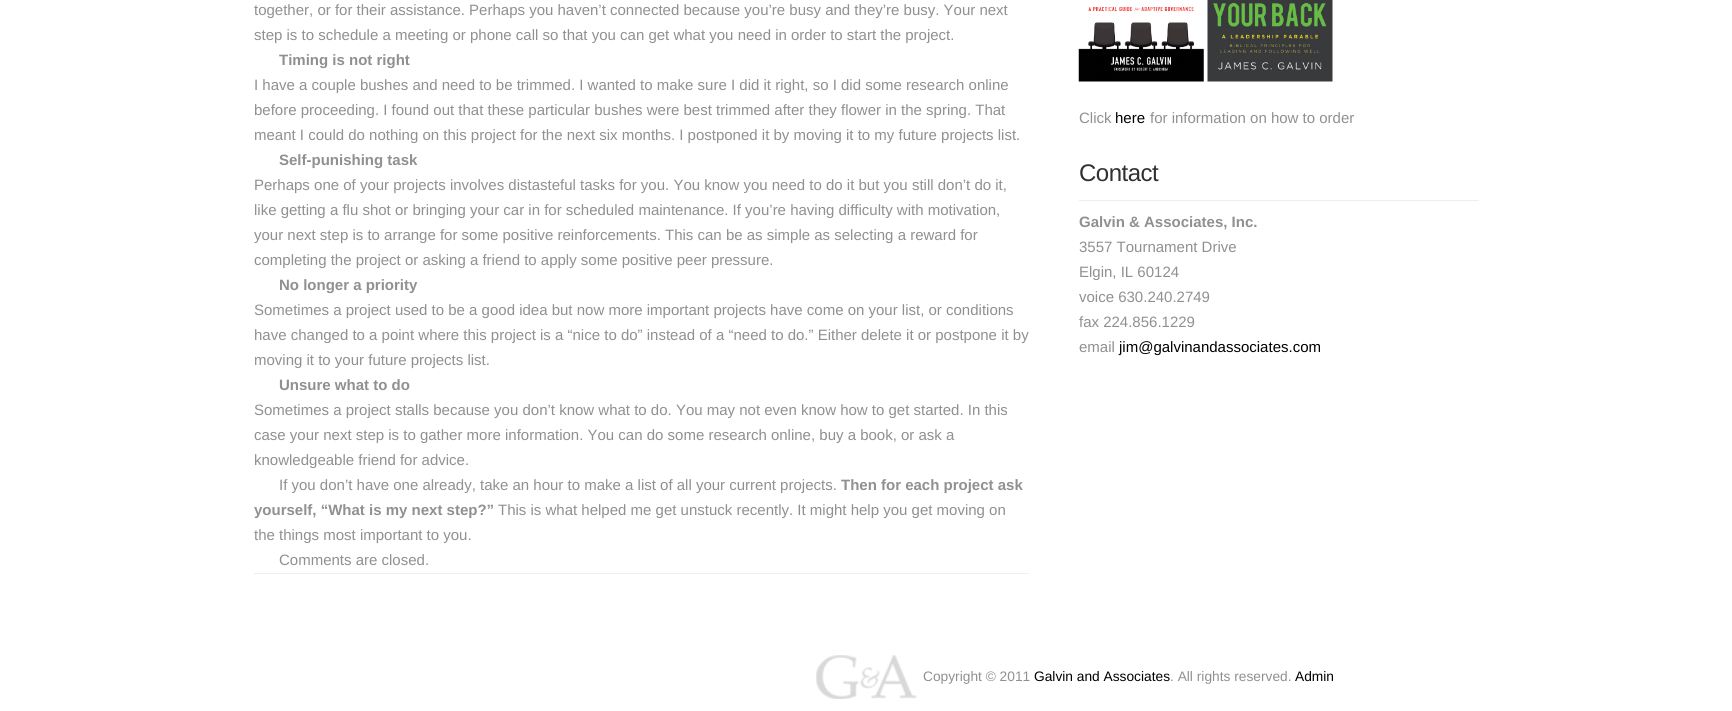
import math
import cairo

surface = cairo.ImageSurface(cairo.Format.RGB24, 1732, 711)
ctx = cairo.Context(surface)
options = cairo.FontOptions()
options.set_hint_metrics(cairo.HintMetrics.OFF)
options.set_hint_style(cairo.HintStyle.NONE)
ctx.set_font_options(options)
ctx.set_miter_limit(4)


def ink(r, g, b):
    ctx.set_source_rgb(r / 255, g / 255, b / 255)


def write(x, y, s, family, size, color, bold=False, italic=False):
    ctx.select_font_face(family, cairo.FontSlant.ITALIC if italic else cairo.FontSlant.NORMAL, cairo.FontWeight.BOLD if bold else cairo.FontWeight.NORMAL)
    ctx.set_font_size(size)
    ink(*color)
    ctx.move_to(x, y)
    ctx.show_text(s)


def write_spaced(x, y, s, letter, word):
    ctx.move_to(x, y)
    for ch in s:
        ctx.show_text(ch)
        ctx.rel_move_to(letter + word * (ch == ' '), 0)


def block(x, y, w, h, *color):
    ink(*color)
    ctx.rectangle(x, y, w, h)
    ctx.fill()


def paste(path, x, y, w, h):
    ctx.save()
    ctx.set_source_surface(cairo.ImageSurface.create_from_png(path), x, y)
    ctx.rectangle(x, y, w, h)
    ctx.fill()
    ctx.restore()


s1 = dict(family="Liberation Sans", size=15, color=(144, 144, 144))
s2 = dict(family="Liberation Sans", size=15, color=(144, 144, 144), bold=True)
s3 = dict(family="Liberation Sans", size=15, color=(0, 0, 0))
s4 = dict(family="Liberation Sans", size=13.75, color=(144, 144, 144))
s5 = dict(family="Liberation Sans", size=13.75, color=(0, 0, 0))

ink(255, 255, 255)
ctx.paint()
block(254, 573, 775, 1, 238, 238, 238)
write(254, 15, "together, or for their assistance. Perhaps you haven’t connected because you’re busy and they’re busy. Your next", **s1)
write(254, 40, "step is to schedule a meeting or phone call so that you can get what you need in order to start the project.", **s1)
write(279, 65, "Timing is not right", **s2)
write(254, 90, "I have a couple bushes and need to be trimmed. I wanted to make sure I did it right, so I did some research online", **s1)
write(254, 115, "before proceeding. I found out that these particular bushes were best trimmed after they flower in the spring. That", **s1)
write(254, 140, "meant I could do nothing on this project for the next six months. I postponed it by moving it to my future projects list.", **s1)
write(279, 165, "Self-punishing task", **s2)
write(254, 190, "Perhaps one of your projects involves distasteful tasks for you. You know you need to do it but you still don’t do it,", **s1)
write(254, 215, "like getting a flu shot or bringing your car in for scheduled maintenance. If you’re having difficulty with motivation,", **s1)
write(254, 240, "your next step is to arrange for some positive reinforcements. This can be as simple as selecting a reward for", **s1)
write(254, 265, "completing the project or asking a friend to apply some positive peer pressure.", **s1)
write(279, 290, "No longer a priority", **s2)
write(254, 315, "Sometimes a project used to be a good idea but now more important projects have come on your list, or conditions", **s1)
write(254, 340, "have changed to a point where this project is a “nice to do” instead of a “need to do.” Either delete it or postpone it by", **s1)
write(254, 365, "moving it to your future projects list.", **s1)
write(279, 390, "Unsure what to do", **s2)
write(254, 415, "Sometimes a project stalls because you don’t know what to do. You may not even know how to get started. In this", **s1)
write(254, 440, "case your next step is to gather more information. You can do some research online, buy a book, or ask a", **s1)
write(254, 465, "knowledgeable friend for advice.", **s1)
write(279, 490, "If you don’t have one already, take an hour to make a list of all your current projects.", **s1)
write(841, 490, "Then for each project ask", **s2)
write(254, 515, "yourself, “What is my next step?”", **s2)
write(498, 515, "This is what helped me get unstuck recently. It might help you get moving on", **s1)
write(254, 540, "the things most important to you.", **s1)
write(279, 565, "Comments are closed.", **s1)
paste("pic1.png", 1078, 7, 126, 75)
paste("pic2.png", 1207, 0, 126, 82)
write(1079, 123, "Click", **s1)
write(1115, 123, "here", **s3)
write(1150, 123, "for information on how to order", **s1)
block(1079, 200, 400, 1, 238, 238, 238)
ctx.set_font_size(24)
ink(48, 48, 48)
write_spaced(1079, 181, "Contact", -0.5, 0)
write(1079, 227, "Galvin & Associates, Inc.", **s2)
write(1079, 252, "3557 Tournament Drive", **s1)
write(1079, 277, "Elgin, IL 60124", **s1)
write(1079, 302, "voice 630.240.2749", **s1)
write(1079, 327, "fax 224.856.1229", **s1)
write(1079, 352, "email", **s1)
write(1119, 352, "jim@galvinandassociates.com", **s3)
paste("pic3.png", 816, 655, 101, 44)
write(923, 681, "Copyright © 2011", **s4)
write(1034, 681, "Galvin and Associates", **s5)
write(1170, 681, ". All rights reserved.", **s4)
write(1295, 681, "Admin", **s5)
surface.write_to_png("screenshot.png")
